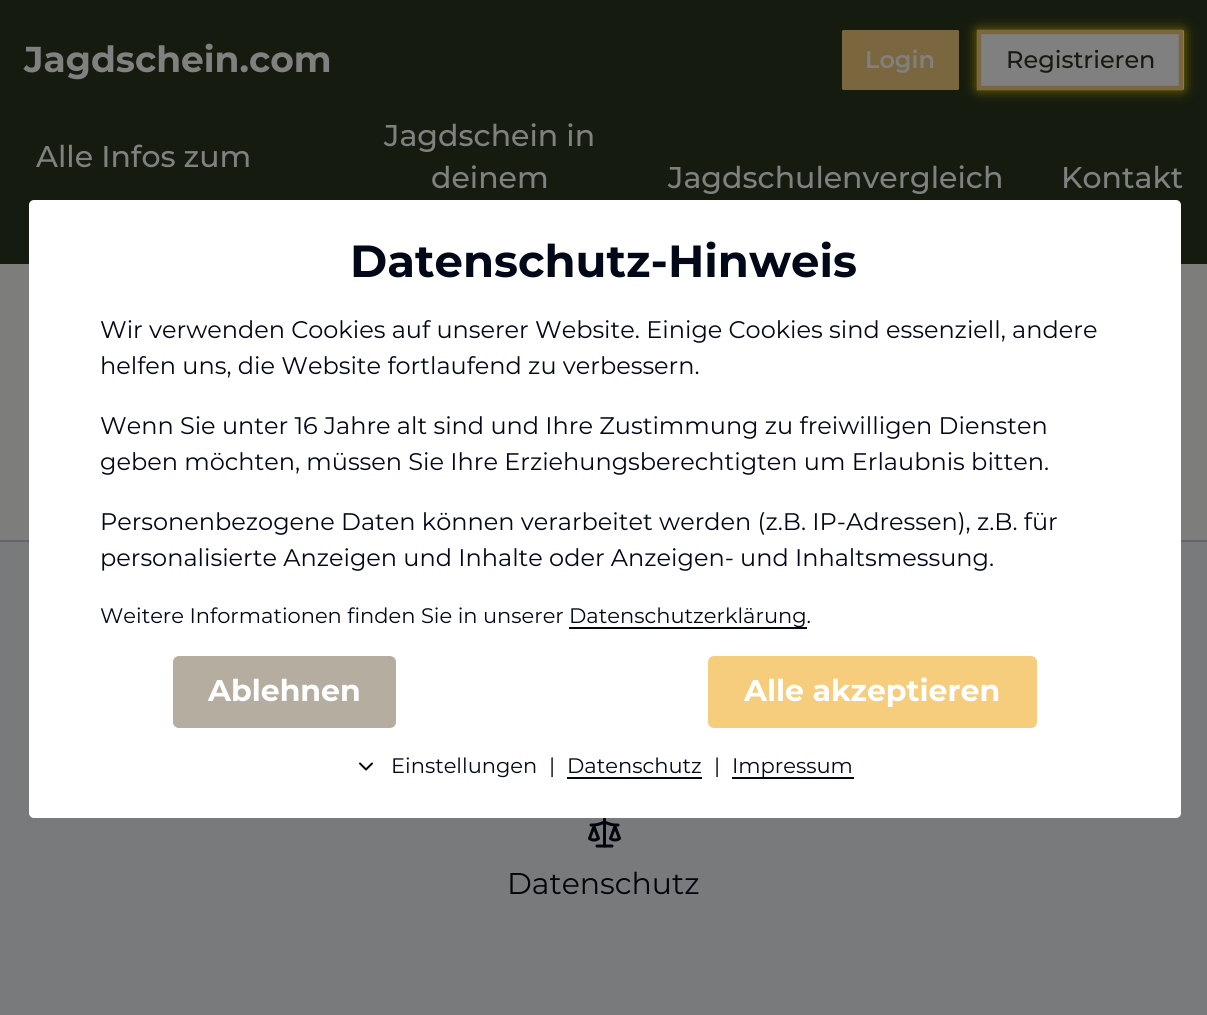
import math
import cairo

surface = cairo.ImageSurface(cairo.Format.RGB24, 1207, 1015)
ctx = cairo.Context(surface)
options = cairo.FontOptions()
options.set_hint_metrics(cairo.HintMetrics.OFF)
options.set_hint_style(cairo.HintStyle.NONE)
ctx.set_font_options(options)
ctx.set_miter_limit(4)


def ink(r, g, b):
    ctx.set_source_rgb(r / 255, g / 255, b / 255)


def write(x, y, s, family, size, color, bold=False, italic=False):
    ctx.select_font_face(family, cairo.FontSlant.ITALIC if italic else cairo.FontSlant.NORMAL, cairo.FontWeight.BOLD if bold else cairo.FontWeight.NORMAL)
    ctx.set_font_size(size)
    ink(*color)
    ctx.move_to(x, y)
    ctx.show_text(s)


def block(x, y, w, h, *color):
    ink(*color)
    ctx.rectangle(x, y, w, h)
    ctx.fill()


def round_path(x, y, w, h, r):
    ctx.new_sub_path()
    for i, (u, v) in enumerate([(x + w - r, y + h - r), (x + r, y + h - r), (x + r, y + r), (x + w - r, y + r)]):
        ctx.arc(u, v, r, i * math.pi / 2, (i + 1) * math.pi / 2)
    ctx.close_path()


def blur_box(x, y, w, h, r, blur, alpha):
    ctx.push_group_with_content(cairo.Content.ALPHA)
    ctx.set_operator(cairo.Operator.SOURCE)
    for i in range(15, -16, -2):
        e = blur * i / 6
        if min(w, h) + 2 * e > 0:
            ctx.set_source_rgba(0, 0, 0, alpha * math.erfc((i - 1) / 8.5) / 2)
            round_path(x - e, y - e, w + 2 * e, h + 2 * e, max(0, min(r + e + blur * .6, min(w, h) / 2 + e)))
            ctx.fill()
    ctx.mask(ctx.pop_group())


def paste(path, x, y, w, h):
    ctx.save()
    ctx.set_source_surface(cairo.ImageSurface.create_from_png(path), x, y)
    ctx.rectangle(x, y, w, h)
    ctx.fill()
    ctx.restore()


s1 = dict(family="Montserrat", size=36, color=(128, 128, 128), bold=True)
s2 = dict(family="Montserrat SemiBold", size=24, color=(128, 128, 128))
s3 = dict(family="Montserrat Medium", size=24, color=(21, 28, 15))
s4 = dict(family="Montserrat Medium", size=30, color=(128, 128, 128))
s5 = dict(family="Montserrat", size=45, color=(2, 8, 23), bold=True)
s6 = dict(family="Montserrat", size=24, color=(2, 8, 23))
s7 = dict(family="Montserrat", size=21, color=(2, 8, 23))
s8 = dict(family="Montserrat", size=30, color=(255, 255, 255), bold=True)
s9 = dict(family="Montserrat", size=30, color=(1, 4, 12))

ink(121, 122, 123)
ctx.paint()
block(0, 0, 1207, 264, 21, 28, 15)
write(24, 72, "Jagdschein.com", **s1)
ink(123, 103, 63)
round_path(842, 30, 117, 60, 1.5)
ctx.fill()
write(865, 68, "Login", **s2)
ink(128, 108, 0)
blur_box(977, 30, 207, 60, 1.5, 6, 1)
ink(128, 128, 128)
round_path(977, 30, 207, 60, 1.5)
ctx.fill()
ctx.new_path()
ctx.move_to(979, 32)
ctx.line_to(1181, 32)
ctx.line_to(1181, 88)
ctx.line_to(979, 88)
ctx.close_path()
ink(123, 103, 63)
ctx.set_line_width(4.5)
ctx.stroke()
write(1006, 68, "Registrieren", **s3)
write(36, 167, "Alle Infos zum", **s4)
write(384, 146, "Jagdschein in", **s4)
write(431, 188, "deinem", **s4)
write(668, 188, "Jagdschulenvergleich", **s4)
write(1061, 188, "Kontakt", **s4)
block(0, 264, 1207, 276, 125, 125, 124)
block(0, 540, 1207, 2, 101, 101, 104)
ink(255, 255, 255)
round_path(29, 200, 1152, 618, 5)
ctx.fill()
write(350, 277, "Datenschutz-Hinweis", **s5)
write(100, 338, "Wir verwenden Cookies auf unserer Website. Einige Cookies sind essenziell, andere", **s6)
write(100, 374, "helfen uns, die Website fortlaufend zu verbessern.", **s6)
write(100, 434, "Wenn Sie unter 16 Jahre alt sind und Ihre Zustimmung zu freiwilligen Diensten", **s6)
write(100, 470, "geben möchten, müssen Sie Ihre Erziehungsberechtigten um Erlaubnis bitten.", **s6)
write(100, 530, "Personenbezogene Daten können verarbeitet werden (z.B. IP-Adressen), z.B. für", **s6)
write(100, 566, "personalisierte Anzeigen und Inhalte oder Anzeigen- und Inhaltsmessung.", **s6)
write(100, 623, "Weitere Informationen finden Sie in unserer", **s7)
block(569, 627, 238, 2, 2, 8, 23)
write(569, 623, "Datenschutzerklärung.", **s7)
ink(181, 173, 159)
round_path(173, 656, 223, 72, 6)
ctx.fill()
write(208, 701, "Ablehnen", **s8)
ink(245, 205, 125)
round_path(708, 656, 329, 72, 6)
ctx.fill()
write(744, 701, "Alle akzeptieren", **s8)
ctx.new_path()
ctx.move_to(360, 763.5)
ctx.line_to(366, 769.5)
ctx.line_to(372, 763.5)
ink(2, 8, 23)
ctx.set_line_width(2)
ctx.set_line_cap(cairo.LineCap.ROUND)
ctx.set_line_join(cairo.LineJoin.ROUND)
ctx.stroke()
write(391, 773, "Einstellungen", **s7)
write(549, 773, "|", **s7)
write(567, 773, "Datenschutz", **s7)
block(567, 777, 135, 2, 2, 8, 23)
write(714, 773, "|", **s7)
block(732, 777, 122, 2, 2, 8, 23)
write(732, 773, "Impressum", **s7)
paste("pic1.png", 588, 818, 33, 30)
write(507, 894, "Datenschutz", **s9)
surface.write_to_png("screenshot.png")
